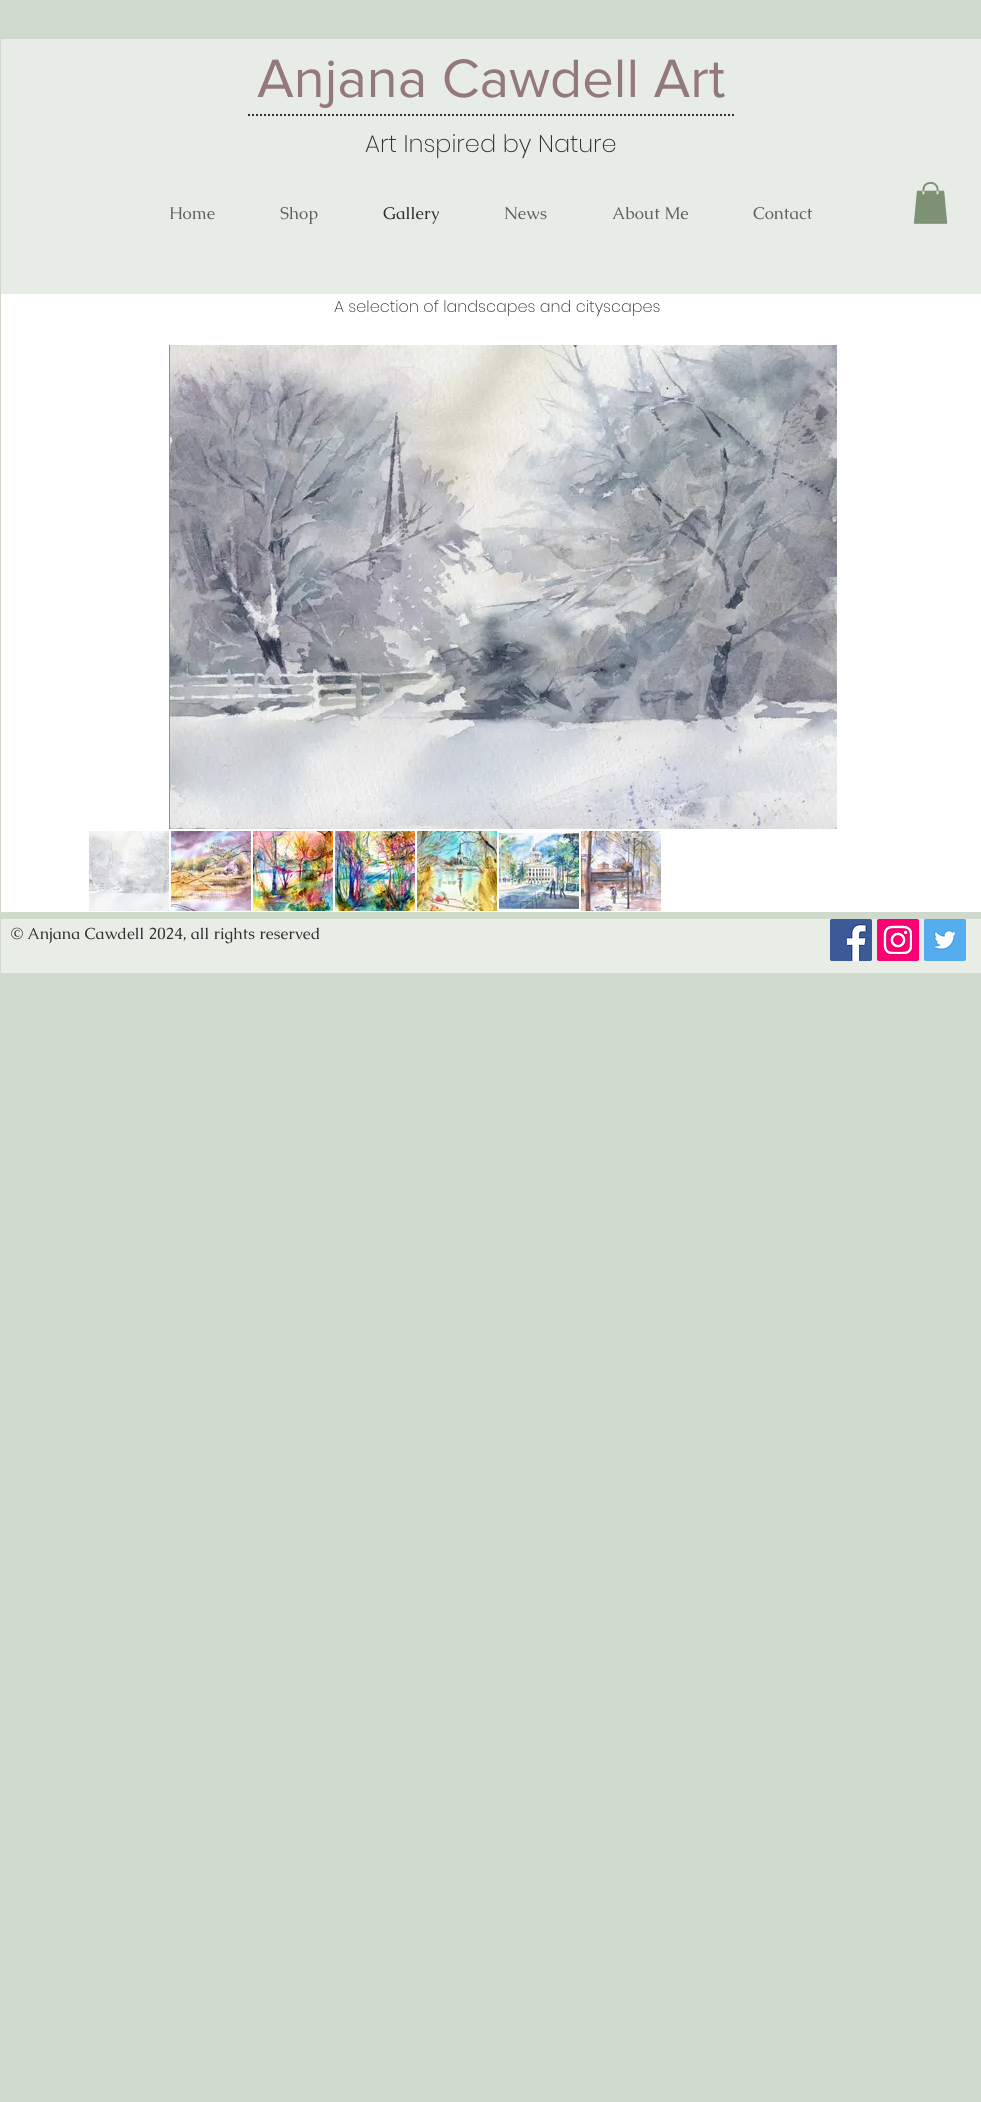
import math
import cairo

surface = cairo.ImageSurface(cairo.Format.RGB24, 981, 2102)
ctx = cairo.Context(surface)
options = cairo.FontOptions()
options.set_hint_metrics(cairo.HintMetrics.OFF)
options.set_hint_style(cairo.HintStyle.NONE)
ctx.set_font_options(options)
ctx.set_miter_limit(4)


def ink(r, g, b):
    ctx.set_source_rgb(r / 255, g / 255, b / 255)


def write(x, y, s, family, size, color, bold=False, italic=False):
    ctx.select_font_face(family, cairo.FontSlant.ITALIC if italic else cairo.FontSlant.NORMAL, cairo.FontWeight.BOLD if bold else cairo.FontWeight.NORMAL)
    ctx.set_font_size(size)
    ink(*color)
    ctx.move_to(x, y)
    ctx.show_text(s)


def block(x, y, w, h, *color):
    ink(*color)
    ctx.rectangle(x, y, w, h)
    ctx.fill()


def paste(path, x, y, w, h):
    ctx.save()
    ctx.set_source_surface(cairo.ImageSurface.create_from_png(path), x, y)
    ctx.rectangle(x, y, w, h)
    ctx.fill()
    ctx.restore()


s1 = dict(family="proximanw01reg", size=56, color=(147, 121, 122))
s2 = dict(family="Poppins ExtraLight", size=24, color=(48, 48, 48))
s3 = dict(family="Caudex", size=17, color=(96, 96, 96))
s4 = dict(family="Caudex", size=17, color=(48, 48, 48))
s5 = dict(family="Poppins ExtraLight", size=16, color=(48, 48, 48))
s6 = dict(family="Caudex", size=16, color=(48, 48, 48))

ink(208, 218, 204)
ctx.paint()
block(1, 39, 980, 255, 232, 236, 230)
write(257, 97, "Anjana Cawdell Art", **s1)
ctx.new_path()
ctx.move_to(248, 115)
ctx.line_to(734, 115)
ink(48, 48, 48)
ctx.set_dash([2, 2])
ctx.stroke()
write(365, 152, "Art Inspired by Nature", **s2)
write(169, 219, "Home", **s3)
write(280, 219, "Shop", **s3)
write(383, 219, "Gallery", **s4)
write(504, 219, "News", **s3)
write(612, 219, "About Me", **s3)
write(753, 219, "Contact", **s3)
paste("pic1.png", 913, 182, 35, 42)
block(1, 294, 980, 618, 255, 255, 255)
write(334, 312, "A selection of landscapes and cityscapes", **s5)
block(169, 345, 1, 484, 144, 144, 144)
paste("pic2.png", 170, 345, 667, 484)
paste("pic3.png", 89, 831, 80, 80)
paste("pic4.png", 171, 831, 80, 80)
paste("pic5.png", 253, 831, 80, 80)
paste("pic6.png", 335, 831, 80, 80)
paste("pic7.png", 417, 831, 80, 80)
paste("pic8.png", 499, 831, 80, 80)
paste("pic9.png", 581, 831, 80, 80)
block(1, 919, 980, 54, 232, 237, 230)
write(11, 939, "© Anjana Cawdell 2024, all rights reserved", **s6)
paste("pic10.png", 830, 919, 42, 42)
paste("pic11.png", 877, 919, 42, 42)
paste("pic12.png", 924, 919, 42, 42)
surface.write_to_png("screenshot.png")
